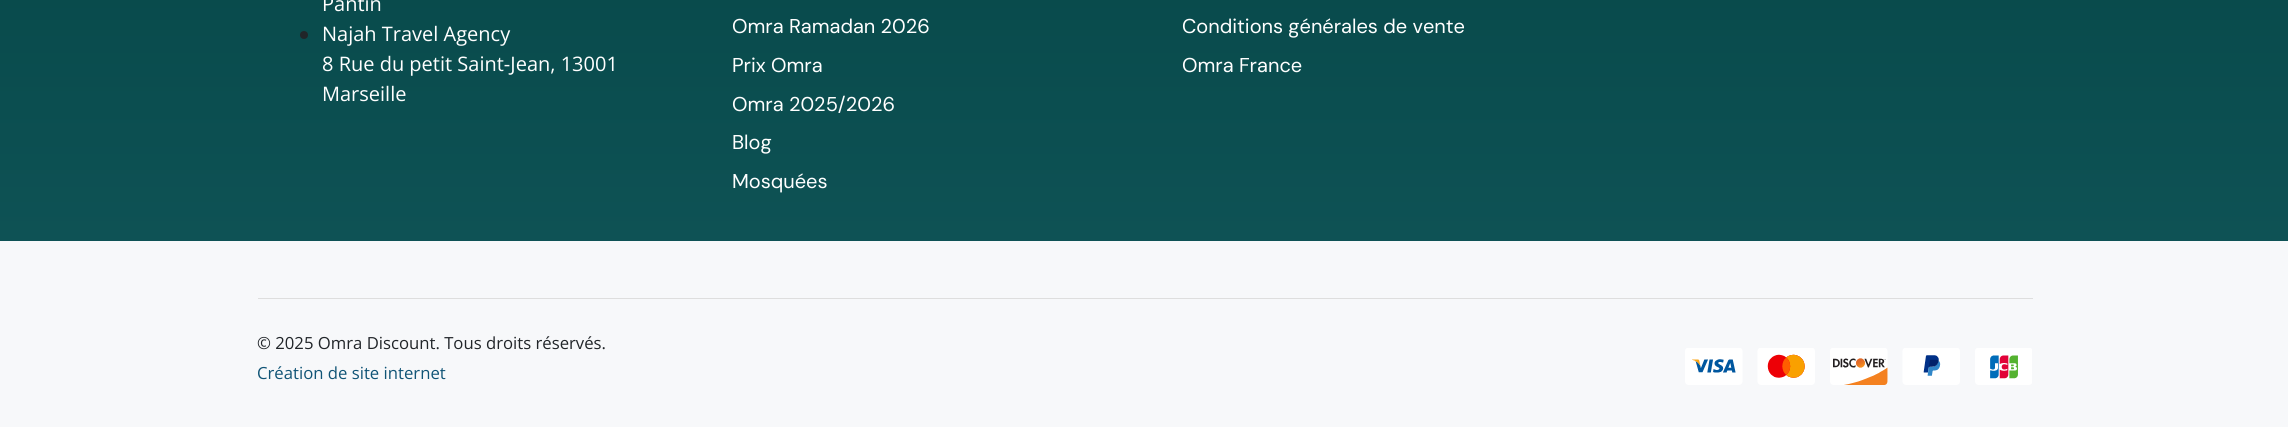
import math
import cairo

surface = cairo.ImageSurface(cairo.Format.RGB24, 2288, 427)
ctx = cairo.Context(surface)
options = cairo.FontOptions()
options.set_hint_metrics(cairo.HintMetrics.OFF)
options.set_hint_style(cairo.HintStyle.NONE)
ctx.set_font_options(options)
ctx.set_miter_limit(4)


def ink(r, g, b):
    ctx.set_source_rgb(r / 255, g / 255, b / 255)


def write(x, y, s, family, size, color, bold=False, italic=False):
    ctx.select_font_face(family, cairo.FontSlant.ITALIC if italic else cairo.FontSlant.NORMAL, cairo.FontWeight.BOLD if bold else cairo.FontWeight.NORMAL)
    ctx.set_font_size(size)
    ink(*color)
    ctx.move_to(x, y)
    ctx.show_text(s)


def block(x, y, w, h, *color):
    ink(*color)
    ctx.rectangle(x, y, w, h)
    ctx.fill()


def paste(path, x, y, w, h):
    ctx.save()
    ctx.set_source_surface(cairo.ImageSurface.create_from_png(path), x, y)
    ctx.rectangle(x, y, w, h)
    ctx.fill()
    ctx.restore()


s1 = dict(family="Open Sans", size=20, color=(255, 255, 255))
s2 = dict(family="DM Sans", size=20, color=(255, 255, 255))
s3 = dict(family="Open Sans", size=16.7, color=(33, 37, 41))
s4 = dict(family="Open Sans", size=16.7, color=(16, 84, 118))

ink(255, 255, 255)
ctx.paint()
gradient = cairo.LinearGradient(1144, -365, 1144, 241)
gradient.add_color_stop_rgba(0, 0.004, 0.251, 0.247, 1)
gradient.add_color_stop_rgba(1, 0.055, 0.322, 0.333, 1)
ctx.set_source(gradient)
ctx.rectangle(0, 0, 2288, 241)
ctx.fill()
write(322, 11, "Pantin", **s1)
ink(33, 37, 41)
ctx.new_path()
ctx.arc(304, 35, 4, 0, 2 * math.pi)
ctx.fill()
write(322, 41, "Najah Travel Agency", **s1)
write(322, 71, "8 Rue du petit Saint-Jean, 13001", **s1)
write(322, 101, "Marseille", **s1)
write(732, 33, "Omra Ramadan 2026", **s2)
write(732, 72, "Prix Omra", **s2)
write(732, 111, "Omra 2025/2026", **s2)
write(732, 149, "Blog", **s2)
write(732, 188, "Mosquées", **s2)
write(1182, 33, "Conditions générales de vente", **s2)
write(1182, 72, "Omra France", **s2)
block(0, 241, 2288, 186, 247, 248, 250)
block(258, 298, 1775, 1, 222, 222, 222)
write(257, 349, "© 2025 Omra Discount. Tous droits réservés.", **s3)
write(257, 379, "Création de site internet", **s4)
paste("pic1.png", 1685, 348, 347, 37)
surface.write_to_png("screenshot.png")
